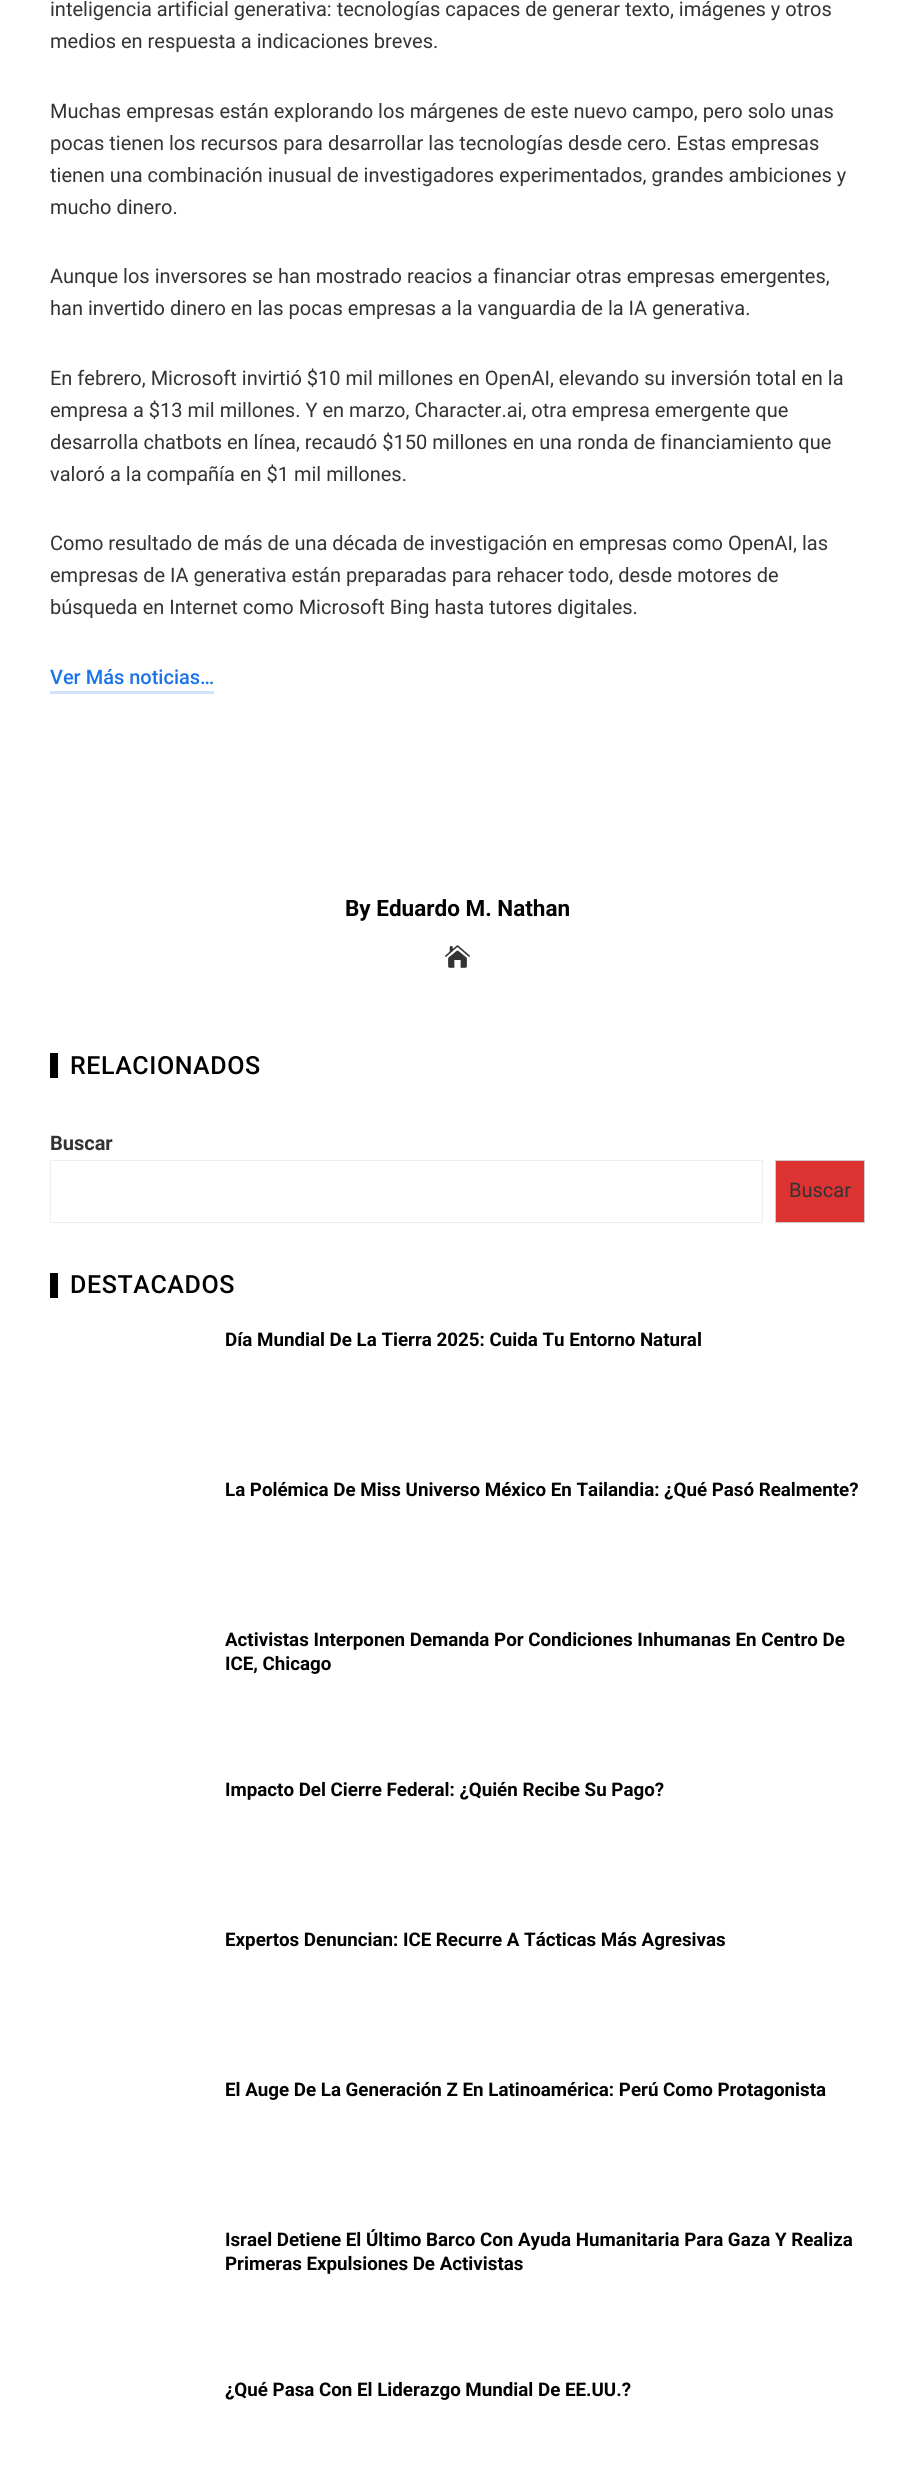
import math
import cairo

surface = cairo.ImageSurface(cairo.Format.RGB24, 915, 2489)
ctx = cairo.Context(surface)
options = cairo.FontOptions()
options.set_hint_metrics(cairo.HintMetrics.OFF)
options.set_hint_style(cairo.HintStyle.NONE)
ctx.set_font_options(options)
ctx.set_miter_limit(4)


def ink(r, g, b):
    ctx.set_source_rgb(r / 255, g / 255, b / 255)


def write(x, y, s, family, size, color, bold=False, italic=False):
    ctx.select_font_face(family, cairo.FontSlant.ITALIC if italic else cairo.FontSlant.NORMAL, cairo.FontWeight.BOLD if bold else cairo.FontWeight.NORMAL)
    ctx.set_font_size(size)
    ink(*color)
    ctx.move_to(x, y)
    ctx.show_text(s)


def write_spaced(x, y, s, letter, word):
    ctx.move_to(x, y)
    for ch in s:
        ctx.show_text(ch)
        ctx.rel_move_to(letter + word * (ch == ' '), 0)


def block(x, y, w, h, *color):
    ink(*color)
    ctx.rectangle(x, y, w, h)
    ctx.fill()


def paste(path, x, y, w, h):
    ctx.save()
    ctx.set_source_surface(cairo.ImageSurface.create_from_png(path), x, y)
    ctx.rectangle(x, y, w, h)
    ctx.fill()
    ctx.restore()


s1 = dict(family="Roboto", size=20, color=(51, 51, 51))
s2 = dict(family="Roboto Medium", size=20, color=(26, 115, 232))
s3 = dict(family="Roboto", size=22.5, color=(0, 0, 0), bold=True)
s4 = dict(family="Roboto", size=20, color=(51, 51, 51), bold=True)
s5 = dict(family="Roboto", size=18.75, color=(0, 0, 0), bold=True)

ink(255, 255, 255)
ctx.paint()
write(50, 16, "inteligencia artificial generativa: tecnologías capaces de generar texto, imágenes y otros", **s1)
write(50, 48, "medios en respuesta a indicaciones breves.", **s1)
write(50, 118, "Muchas empresas están explorando los márgenes de este nuevo campo, pero solo unas", **s1)
write(50, 150, "pocas tienen los recursos para desarrollar las tecnologías desde cero. Estas empresas", **s1)
write(50, 182, "tienen una combinación inusual de investigadores experimentados, grandes ambiciones y", **s1)
write(50, 214, "mucho dinero.", **s1)
write(50, 283, "Aunque los inversores se han mostrado reacios a financiar otras empresas emergentes,", **s1)
write(50, 315, "han invertido dinero en las pocas empresas a la vanguardia de la IA generativa.", **s1)
write(50, 385, "En febrero, Microsoft invirtió $10 mil millones en OpenAI, elevando su inversión total en la", **s1)
write(50, 417, "empresa a $13 mil millones. Y en marzo, Character.ai, otra empresa emergente que", **s1)
write(50, 449, "desarrolla chatbots en línea, recaudó $150 millones en una ronda de financiamiento que", **s1)
write(50, 481, "valoró a la compañía en $1 mil millones.", **s1)
write(50, 550, "Como resultado de más de una década de investigación en empresas como OpenAI, las", **s1)
write(50, 582, "empresas de IA generativa están preparadas para rehacer todo, desde motores de", **s1)
write(50, 614, "búsqueda en Internet como Microsoft Bing hasta tutores digitales.", **s1)
write(50, 684, "Ver Más noticias…", **s2)
block(50, 691, 164, 3, 209, 227, 250)
write(345, 916, "By Eduardo M. Nathan", **s3)
paste("pic1.png", 445, 945, 25, 23)
block(50, 1053, 8, 25, 0, 0, 0)
ctx.select_font_face("Roboto Medium")
ctx.set_font_size(25)
write_spaced(70, 1074, "RELACIONADOS", 0.6, 0)
write(50, 1150, "Buscar", **s4)
ctx.rectangle(50.5, 1160.5, 712, 62)
ink(238, 238, 238)
ctx.set_line_width(1)
ctx.stroke()
ink(221, 51, 51)
ctx.rectangle(775.5, 1160.5, 89, 62)
ctx.fill_preserve()
ink(204, 204, 204)
ctx.stroke()
write(789, 1197, "Buscar", **s1)
block(50, 1273, 8, 25, 0, 0, 0)
ctx.select_font_face("Roboto Medium")
ctx.set_font_size(25)
write_spaced(70, 1293, "DESTACADOS", 0.6, 0)
write(225, 1346, "Día Mundial De La Tierra 2025: Cuida Tu Entorno Natural", **s5)
write(225, 1496, "La Polémica De Miss Universo México En Tailandia: ¿Qué Pasó Realmente?", **s5)
write(225, 1646, "Activistas Interponen Demanda Por Condiciones Inhumanas En Centro De", **s5)
write(225, 1670, "ICE, Chicago", **s5)
write(225, 1796, "Impacto Del Cierre Federal: ¿Quién Recibe Su Pago?", **s5)
write(225, 1946, "Expertos Denuncian: ICE Recurre A Tácticas Más Agresivas", **s5)
write(225, 2096, "El Auge De La Generación Z En Latinoamérica: Perú Como Protagonista", **s5)
write(225, 2246, "Israel Detiene El Último Barco Con Ayuda Humanitaria Para Gaza Y Realiza", **s5)
write(225, 2270, "Primeras Expulsiones De Activistas", **s5)
write(225, 2396, "¿Qué Pasa Con El Liderazgo Mundial De EE.UU.?", **s5)
surface.write_to_png("screenshot.png")
